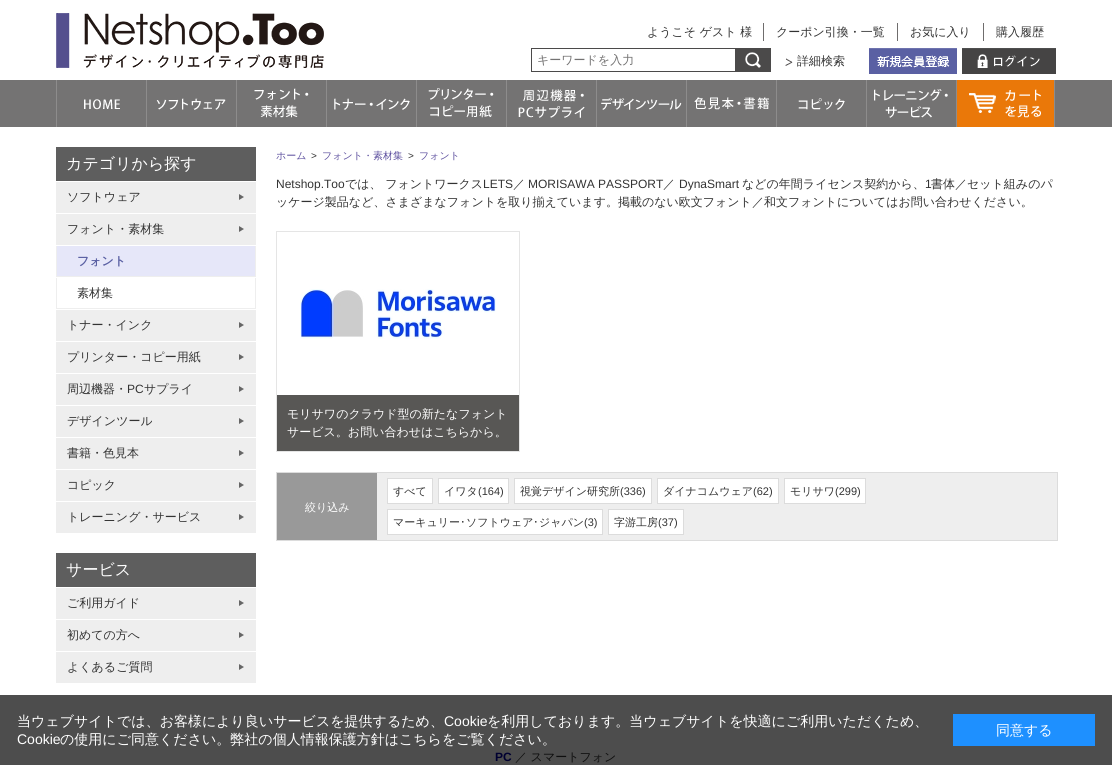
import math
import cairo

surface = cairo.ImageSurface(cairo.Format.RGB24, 1112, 765)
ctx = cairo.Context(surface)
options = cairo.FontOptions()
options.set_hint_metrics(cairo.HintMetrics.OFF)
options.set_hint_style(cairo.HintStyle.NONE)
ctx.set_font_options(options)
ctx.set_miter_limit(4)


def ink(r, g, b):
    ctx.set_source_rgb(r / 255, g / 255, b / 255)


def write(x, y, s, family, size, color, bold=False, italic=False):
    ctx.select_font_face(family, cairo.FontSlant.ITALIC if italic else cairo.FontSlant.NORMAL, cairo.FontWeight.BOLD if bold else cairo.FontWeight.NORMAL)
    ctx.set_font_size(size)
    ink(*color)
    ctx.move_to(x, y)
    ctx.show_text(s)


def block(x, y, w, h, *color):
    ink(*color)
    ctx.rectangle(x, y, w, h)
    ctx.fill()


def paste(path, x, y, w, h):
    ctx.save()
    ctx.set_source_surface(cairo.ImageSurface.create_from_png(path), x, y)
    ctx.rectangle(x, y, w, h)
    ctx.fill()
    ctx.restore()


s1 = dict(family="WenQuanYi Zen Hei Medium", size=12, color=(51, 51, 51))
s2 = dict(family="WenQuanYi Zen Hei Medium", size=12, color=(116, 115, 115))
s3 = dict(family="WenQuanYi Zen Hei Medium", size=16, color=(255, 255, 255))
s4 = dict(family="WenQuanYi Zen Hei", size=12, color=(90, 96, 163), bold=True)
s5 = dict(family="Liberation Sans", size=12, color=(51, 51, 51))
s6 = dict(family="WenQuanYi Zen Hei Medium", size=10, color=(95, 82, 160))
s7 = dict(family="Liberation Sans", size=10, color=(51, 51, 51))
s8 = dict(family="WenQuanYi Zen Hei Medium", size=12, color=(255, 255, 255))
s9 = dict(family="WenQuanYi Zen Hei Medium", size=11, color=(255, 255, 255))
s10 = dict(family="WenQuanYi Zen Hei Medium", size=11, color=(51, 51, 51))
s11 = dict(family="Liberation Sans", size=11, color=(51, 51, 51))
s12 = dict(family="IPAPGothic", size=11, color=(51, 51, 51))
s13 = dict(family="Liberation Sans", size=12, color=(0, 0, 48), bold=True)
s14 = dict(family="WenQuanYi Zen Hei Medium", size=12, color=(15, 15, 15))
s15 = dict(family="WenQuanYi Zen Hei Medium", size=14, color=(255, 255, 255))
s16 = dict(family="Liberation Sans", size=14, color=(255, 255, 255))

ink(255, 255, 255)
ctx.paint()
block(0, 695, 1112, 70, 77, 77, 77)
paste("pic1.png", 56, 13, 268, 55)
write(647, 36, "ようこそ ゲスト 様", **s1)
block(763, 23, 1, 18, 111, 109, 109)
write(776, 36, "クーポン引換・一覧", **s1)
block(897, 23, 1, 18, 111, 109, 109)
write(910, 36, "お気に入り", **s1)
block(983, 23, 1, 18, 111, 109, 109)
write(996, 36, "購入履歴", **s1)
ctx.rectangle(531.5, 48.5, 239, 23)
ink(75, 74, 74)
ctx.set_line_width(1)
ctx.stroke()
write(537, 64, "キーワードを入力", **s2)
paste("pic2.png", 735, 49, 35, 22)
paste("pic3.png", 785, 58, 8, 8)
write(797, 65, "詳細検索", **s1)
paste("pic4.png", 869, 48, 88, 26)
paste("pic5.png", 962, 48, 94, 26)
block(0, 80, 1112, 47, 116, 115, 115)
block(56, 80, 1, 47, 141, 140, 140)
paste("pic6.png", 84, 99, 36, 11)
block(146, 80, 1, 47, 141, 140, 140)
paste("pic7.png", 156, 98, 70, 12)
block(236, 80, 1, 47, 141, 140, 140)
paste("pic8.png", 254, 88, 55, 30)
block(326, 80, 1, 47, 141, 140, 140)
paste("pic9.png", 334, 98, 76, 12)
block(416, 80, 1, 47, 141, 140, 140)
paste("pic10.png", 428, 88, 66, 30)
block(506, 80, 1, 47, 141, 140, 140)
paste("pic11.png", 518, 89, 67, 29)
block(596, 80, 1, 47, 141, 140, 140)
paste("pic12.png", 601, 97, 81, 13)
block(686, 80, 1, 47, 141, 140, 140)
paste("pic13.png", 694, 97, 75, 13)
block(776, 80, 1, 47, 141, 140, 140)
paste("pic14.png", 798, 98, 47, 12)
block(866, 80, 1, 47, 141, 140, 140)
paste("pic15.png", 874, 89, 74, 29)
block(957, 80, 97, 47, 234, 120, 9)
paste("pic16.png", 969, 89, 72, 29)
block(1054, 80, 1, 47, 141, 140, 140)
block(956, 80, 1, 47, 141, 140, 140)
block(56, 147, 200, 34, 94, 94, 94)
write(66, 169, "カテゴリから探す", **s3)
block(255, 182, 1, 31, 238, 238, 238)
block(56, 212, 200, 1, 238, 238, 238)
block(56, 182, 1, 31, 238, 238, 238)
block(57, 182, 198, 30, 238, 238, 238)
paste("pic17.png", 239, 194, 5, 6)
write(67, 201, "ソフトウェア", **s1)
block(255, 214, 1, 31, 238, 238, 238)
block(56, 244, 200, 1, 238, 238, 238)
block(56, 214, 1, 31, 238, 238, 238)
block(57, 214, 198, 30, 238, 238, 238)
paste("pic17.png", 239, 226, 5, 6)
write(67, 233, "フォント・素材集", **s1)
block(255, 246, 1, 31, 238, 238, 238)
block(56, 276, 200, 1, 238, 238, 238)
block(56, 246, 1, 31, 238, 238, 238)
block(57, 246, 198, 30, 230, 231, 249)
write(77, 265, "フォント", **s4)
block(255, 278, 1, 31, 238, 238, 238)
block(56, 308, 200, 1, 238, 238, 238)
block(56, 278, 1, 31, 238, 238, 238)
write(77, 297, "素材集", **s1)
block(255, 310, 1, 31, 238, 238, 238)
block(56, 340, 200, 1, 238, 238, 238)
block(56, 310, 1, 31, 238, 238, 238)
block(57, 310, 198, 30, 238, 238, 238)
paste("pic17.png", 239, 322, 5, 6)
write(67, 329, "トナー・インク", **s1)
block(255, 342, 1, 31, 238, 238, 238)
block(56, 372, 200, 1, 238, 238, 238)
block(56, 342, 1, 31, 238, 238, 238)
block(57, 342, 198, 30, 238, 238, 238)
paste("pic17.png", 239, 354, 5, 6)
write(67, 361, "プリンター・コピー用紙", **s1)
block(255, 374, 1, 31, 238, 238, 238)
block(56, 404, 200, 1, 238, 238, 238)
block(56, 374, 1, 31, 238, 238, 238)
block(57, 374, 198, 30, 238, 238, 238)
paste("pic17.png", 239, 386, 5, 6)
write(67, 393, "周辺機器・", **s1)
write(127, 393, "PC", **s5)
write(144, 393, "サプライ", **s1)
block(255, 406, 1, 31, 238, 238, 238)
block(56, 436, 200, 1, 238, 238, 238)
block(56, 406, 1, 31, 238, 238, 238)
block(57, 406, 198, 30, 238, 238, 238)
paste("pic17.png", 239, 418, 5, 6)
write(67, 425, "デザインツール", **s1)
block(255, 438, 1, 31, 238, 238, 238)
block(56, 468, 200, 1, 238, 238, 238)
block(56, 438, 1, 31, 238, 238, 238)
block(57, 438, 198, 30, 238, 238, 238)
paste("pic17.png", 239, 450, 5, 6)
write(67, 457, "書籍・色見本", **s1)
block(255, 470, 1, 31, 238, 238, 238)
block(56, 500, 200, 1, 238, 238, 238)
block(56, 470, 1, 31, 238, 238, 238)
block(57, 470, 198, 30, 238, 238, 238)
paste("pic17.png", 239, 482, 5, 6)
write(67, 489, "コピック", **s1)
block(255, 502, 1, 31, 238, 238, 238)
block(56, 532, 200, 1, 238, 238, 238)
block(56, 502, 1, 31, 238, 238, 238)
block(57, 502, 198, 30, 238, 238, 238)
paste("pic17.png", 239, 514, 5, 6)
write(67, 521, "トレーニング・サービス", **s1)
block(56, 553, 200, 34, 94, 94, 94)
write(66, 575, "サービス", **s3)
block(255, 588, 1, 31, 238, 238, 238)
block(56, 618, 200, 1, 238, 238, 238)
block(56, 588, 1, 31, 238, 238, 238)
block(57, 588, 198, 30, 238, 238, 238)
paste("pic17.png", 239, 600, 5, 6)
write(67, 607, "ご利用ガイド", **s1)
block(255, 620, 1, 31, 238, 238, 238)
block(56, 650, 200, 1, 238, 238, 238)
block(56, 620, 1, 31, 238, 238, 238)
block(57, 620, 198, 30, 238, 238, 238)
paste("pic17.png", 239, 632, 5, 6)
write(67, 639, "初めての方へ", **s1)
block(255, 652, 1, 31, 238, 238, 238)
block(56, 682, 200, 1, 238, 238, 238)
block(56, 652, 1, 31, 238, 238, 238)
block(57, 652, 198, 30, 238, 238, 238)
paste("pic17.png", 239, 664, 5, 6)
write(67, 671, "よくあるご質問", **s1)
write(276, 159, "ホーム", **s6)
write(311, 159, ">", **s7)
write(322, 159, "フォント・素材集", **s6)
write(408, 159, ">", **s7)
write(419, 159, "フォント", **s6)
write(276, 188, "Netshop.Too", **s5)
write(345, 188, "では、 フォントワークス", **s1)
write(483, 188, "LETS", **s5)
write(513, 188, "／", **s1)
write(528, 188, "MORISAWA PASSPORT", **s5)
write(663, 188, "／", **s1)
write(679, 188, "DynaSmart", **s5)
write(742, 188, "などの年間ライセンス契約から、", **s1)
write(925, 188, "1", **s5)
write(931, 188, "書体／セット組みのパ", **s1)
write(276, 206, "ッケージ製品など、さまざまなフォントを取り揃えています。掲載のない欧文フォント／和文フォントについてはお問い合わせください。", **s1)
ctx.rectangle(276.5, 231.5, 243, 220)
ink(229, 229, 229)
ctx.stroke()
paste("pic18.png", 300, 289, 196, 50)
block(277, 395, 242, 56, 88, 87, 85)
write(287, 418, "モリサワのクラウド型の新たなフォント", **s8)
write(287, 436, "サービス。お問い合わせはこちらから。", **s8)
ctx.rectangle(276.5, 472.5, 781, 68)
ink(220, 220, 220)
ctx.stroke()
block(277, 473, 100, 67, 153, 153, 153)
write(305, 511, "絞り込み", **s9)
block(377, 473, 680, 67, 238, 238, 238)
ink(255, 255, 255)
ctx.rectangle(387.5, 478.5, 45, 25)
ctx.fill_preserve()
ink(220, 220, 220)
ctx.stroke()
write(393, 495, "すべて", **s10)
ink(255, 255, 255)
ctx.rectangle(438.5, 478.5, 70, 25)
ctx.fill_preserve()
ink(220, 220, 220)
ctx.stroke()
write(444, 495, "イワタ", **s10)
write(478, 495, "(164)", **s11)
ink(255, 255, 255)
ctx.rectangle(514.5, 478.5, 137, 25)
ctx.fill_preserve()
ink(220, 220, 220)
ctx.stroke()
write(520, 495, "視覚デザイン研究所", **s10)
write(620, 495, "(336)", **s11)
ink(255, 255, 255)
ctx.rectangle(657.5, 478.5, 121, 25)
ctx.fill_preserve()
ink(220, 220, 220)
ctx.stroke()
write(663, 495, "ダイナコムウェア", **s10)
write(753, 495, "(62)", **s11)
ink(255, 255, 255)
ctx.rectangle(784.5, 478.5, 81, 25)
ctx.fill_preserve()
ink(220, 220, 220)
ctx.stroke()
write(790, 495, "モリサワ", **s10)
write(835, 495, "(299)", **s11)
ink(255, 255, 255)
ctx.rectangle(387.5, 509.5, 215, 25)
ctx.fill_preserve()
ink(220, 220, 220)
ctx.stroke()
write(393, 526, "マーキュリー", **s10)
write(460, 526, "･", **s12)
write(466, 526, "ソフトウェア", **s10)
write(533, 526, "･", **s12)
write(539, 526, "ジャパン", **s10)
write(584, 526, "(3)", **s11)
ink(255, 255, 255)
ctx.rectangle(608.5, 509.5, 75, 25)
ctx.fill_preserve()
ink(220, 220, 220)
ctx.stroke()
write(614, 526, "字游工房", **s10)
write(658, 526, "(37)", **s11)
write(495, 761, "PC", **s13)
write(515, 761, "／ スマートフォン", **s14)
write(17, 726, "当ウェブサイトでは、お客様により良いサービスを提供するため、", **s15)
write(444, 726, "Cookie", **s16)
write(487, 726, "を利用しております。当ウェブサイトを快適にご利用いただくため、", **s15)
write(17, 744, "Cookie", **s16)
write(60, 744, "の使用にご同意ください。弊社の個人情報保護方針はこちらをご覧ください。", **s15)
block(953, 714, 142, 32, 30, 144, 255)
write(996, 735, "同意する", **s15)
surface.write_to_png("screenshot.png")
